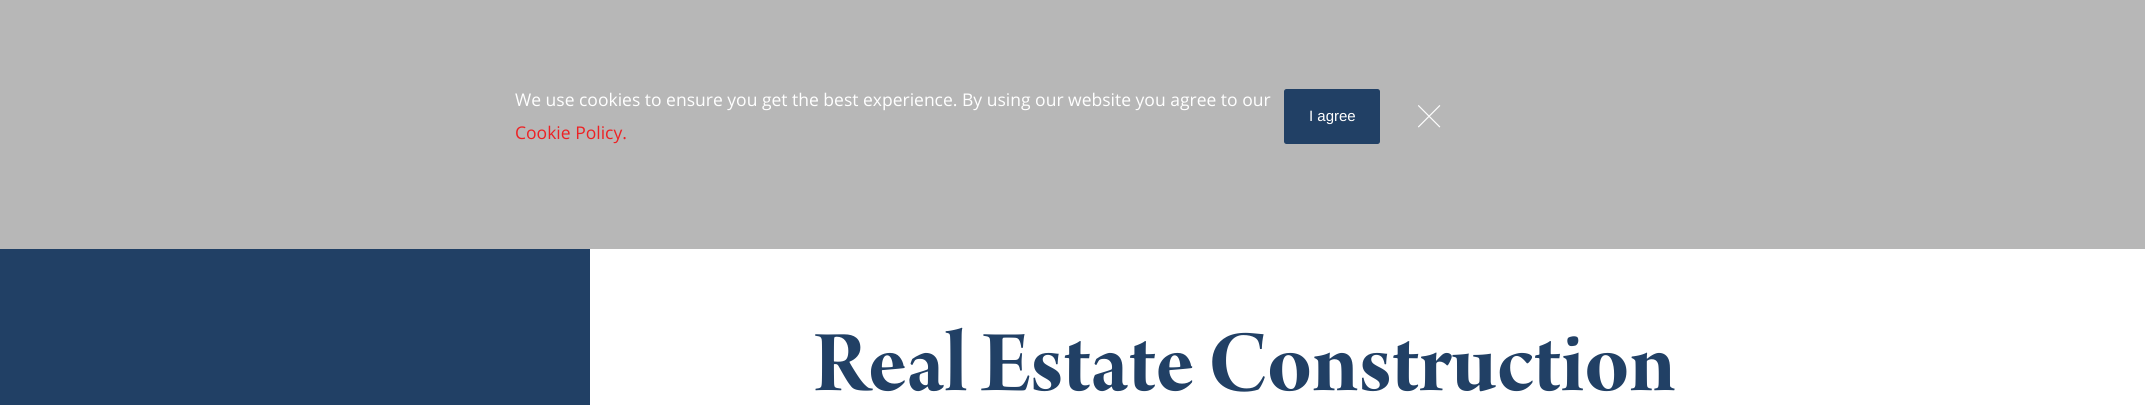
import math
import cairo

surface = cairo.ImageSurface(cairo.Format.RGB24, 2145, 405)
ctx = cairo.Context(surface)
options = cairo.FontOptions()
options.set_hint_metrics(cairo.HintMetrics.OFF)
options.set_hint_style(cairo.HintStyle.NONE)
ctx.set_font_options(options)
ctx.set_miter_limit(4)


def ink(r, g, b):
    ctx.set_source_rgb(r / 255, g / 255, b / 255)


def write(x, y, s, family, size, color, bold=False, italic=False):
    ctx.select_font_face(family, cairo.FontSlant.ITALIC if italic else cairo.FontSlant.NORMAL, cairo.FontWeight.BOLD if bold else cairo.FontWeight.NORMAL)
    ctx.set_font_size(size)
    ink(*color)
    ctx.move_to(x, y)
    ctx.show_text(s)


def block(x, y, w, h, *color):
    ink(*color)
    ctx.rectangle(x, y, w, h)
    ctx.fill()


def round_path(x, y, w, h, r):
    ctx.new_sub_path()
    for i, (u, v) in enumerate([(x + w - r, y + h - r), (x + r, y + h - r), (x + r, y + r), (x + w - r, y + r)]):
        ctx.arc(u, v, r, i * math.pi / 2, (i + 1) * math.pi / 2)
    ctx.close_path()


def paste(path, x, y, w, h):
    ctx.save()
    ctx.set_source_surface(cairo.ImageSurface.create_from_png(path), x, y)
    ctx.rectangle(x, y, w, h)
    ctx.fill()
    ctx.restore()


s1 = dict(family="Open Sans", size=17.5, color=(255, 255, 255))
s2 = dict(family="Open Sans", size=17.5, color=(237, 33, 36))
s3 = dict(family="Liberation Sans", size=15, color=(255, 255, 255))
s4 = dict(family="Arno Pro", size=92.5, color=(33, 64, 101), bold=True)

ink(255, 255, 255)
ctx.paint()
block(0, 0, 2145, 249, 183, 183, 183)
write(515, 106, "We use cookies to ensure you get the best experience. By using our website you agree to our", **s1)
write(515, 139, "Cookie Policy.", **s2)
ink(33, 64, 101)
round_path(1284, 89, 96, 55, 2.5)
ctx.fill()
write(1309, 121, "I agree", **s3)
paste("pic1.png", 1418, 105, 23, 23)
block(0, 249, 590, 156, 33, 64, 101)
write(813, 390, "Real Estate Construction", **s4)
surface.write_to_png("screenshot.png")
